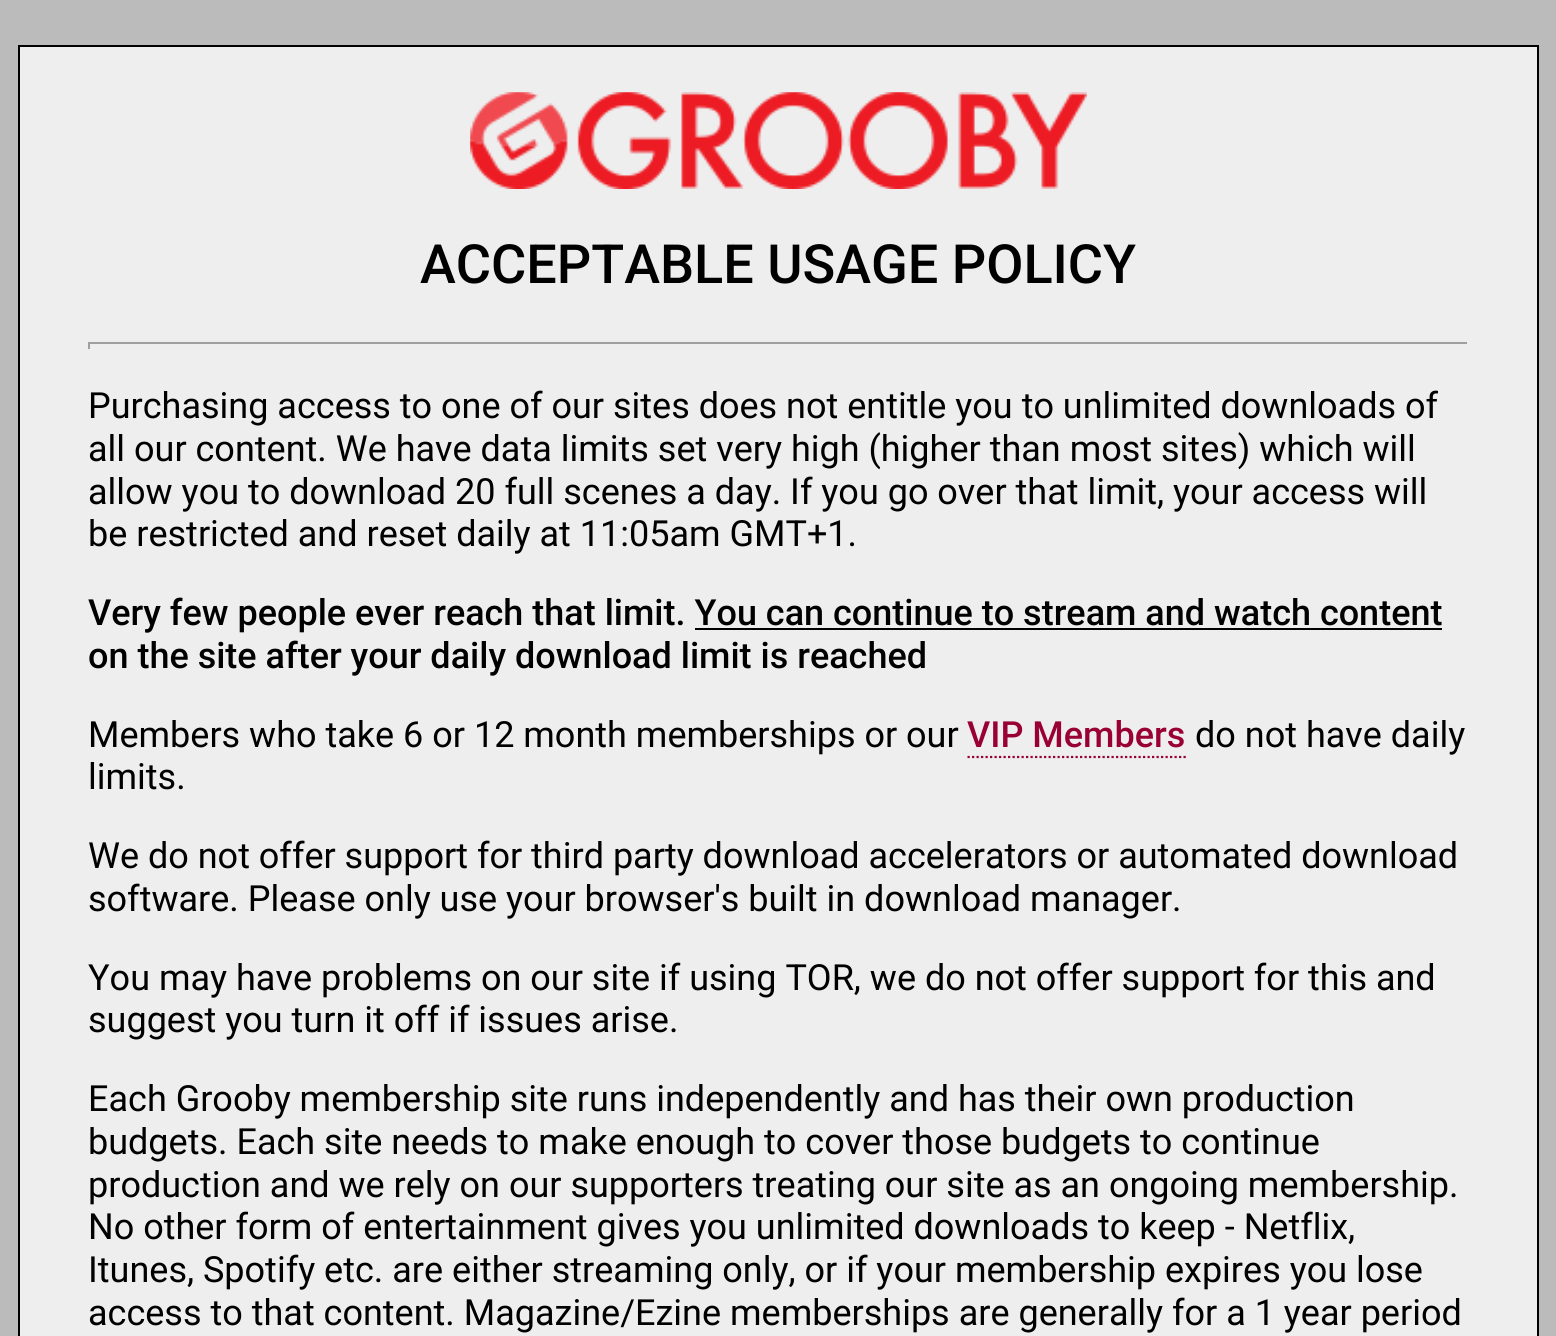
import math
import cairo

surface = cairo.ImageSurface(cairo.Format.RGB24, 1556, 1336)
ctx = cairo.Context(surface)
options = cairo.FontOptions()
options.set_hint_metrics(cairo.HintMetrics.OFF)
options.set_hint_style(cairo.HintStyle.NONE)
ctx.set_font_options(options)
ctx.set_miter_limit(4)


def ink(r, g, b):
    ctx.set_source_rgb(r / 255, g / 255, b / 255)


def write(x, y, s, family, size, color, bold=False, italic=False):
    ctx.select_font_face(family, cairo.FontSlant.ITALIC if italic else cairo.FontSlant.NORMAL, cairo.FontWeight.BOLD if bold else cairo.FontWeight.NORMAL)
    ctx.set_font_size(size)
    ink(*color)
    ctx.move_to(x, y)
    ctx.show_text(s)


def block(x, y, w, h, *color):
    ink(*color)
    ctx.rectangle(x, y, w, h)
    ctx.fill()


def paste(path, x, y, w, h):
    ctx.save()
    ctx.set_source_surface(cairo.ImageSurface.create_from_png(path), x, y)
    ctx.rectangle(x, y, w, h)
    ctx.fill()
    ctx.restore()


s1 = dict(family="Roboto Medium", size=54, color=(0, 0, 0))
s2 = dict(family="Roboto", size=36, color=(0, 0, 0))
s3 = dict(family="Roboto Medium", size=36, color=(0, 0, 0))
s4 = dict(family="Roboto Medium", size=36, color=(153, 0, 51))

ink(187, 187, 187)
ctx.paint()
ink(238, 238, 238)
ctx.rectangle(19, 46, 1519, 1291)
ctx.fill_preserve()
ink(0, 0, 0)
ctx.stroke()
paste("pic1.png", 470, 92, 617, 97)
write(420, 283, "ACCEPTABLE USAGE POLICY", **s1)
block(88, 342, 1381, 2, 159, 159, 159)
block(1467, 342, 2, 7, 238, 238, 238)
block(88, 342, 2, 7, 159, 159, 159)
write(88, 418, "Purchasing access to one of our sites does not entitle you to unlimited downloads of", **s2)
write(88, 461, "all our content. We have data limits set very high (higher than most sites) which will", **s2)
write(88, 504, "allow you to download 20 full scenes a day. If you go over that limit, your access will", **s2)
write(88, 546, "be restricted and reset daily at 11:05am GMT+1.", **s2)
write(88, 625, "Very few people ever reach that limit. You can continue to stream and watch content", **s3)
block(695, 628, 747, 2, 0, 0, 0)
write(88, 668, "on the site after your daily download limit is reached", **s3)
write(88, 747, "Members who take 6 or 12 month memberships or our", **s2)
write(967, 747, "VIP Members", **s4)
ctx.new_path()
ctx.move_to(967.5, 757)
ctx.line_to(1186, 757)
ctx.set_line_width(2.2)
ctx.set_dash([2.25, 2.25])
ctx.stroke()
write(1195, 747, "do not have daily", **s2)
write(88, 789, "limits.", **s2)
write(88, 868, "We do not offer support for third party download accelerators or automated download", **s2)
write(88, 911, "software. Please only use your browser's built in download manager.", **s2)
write(88, 990, "You may have problems on our site if using TOR, we do not offer support for this and", **s2)
write(88, 1032, "suggest you turn it off if issues arise.", **s2)
write(88, 1111, "Each Grooby membership site runs independently and has their own production", **s2)
write(88, 1154, "budgets. Each site needs to make enough to cover those budgets to continue", **s2)
write(88, 1197, "production and we rely on our supporters treating our site as an ongoing membership.", **s2)
write(88, 1239, "No other form of entertainment gives you unlimited downloads to keep - Netflix,", **s2)
write(88, 1282, "Itunes, Spotify etc. are either streaming only, or if your membership expires you lose", **s2)
write(88, 1325, "access to that content. Magazine/Ezine memberships are generally for a 1 year period", **s2)
surface.write_to_png("screenshot.png")
